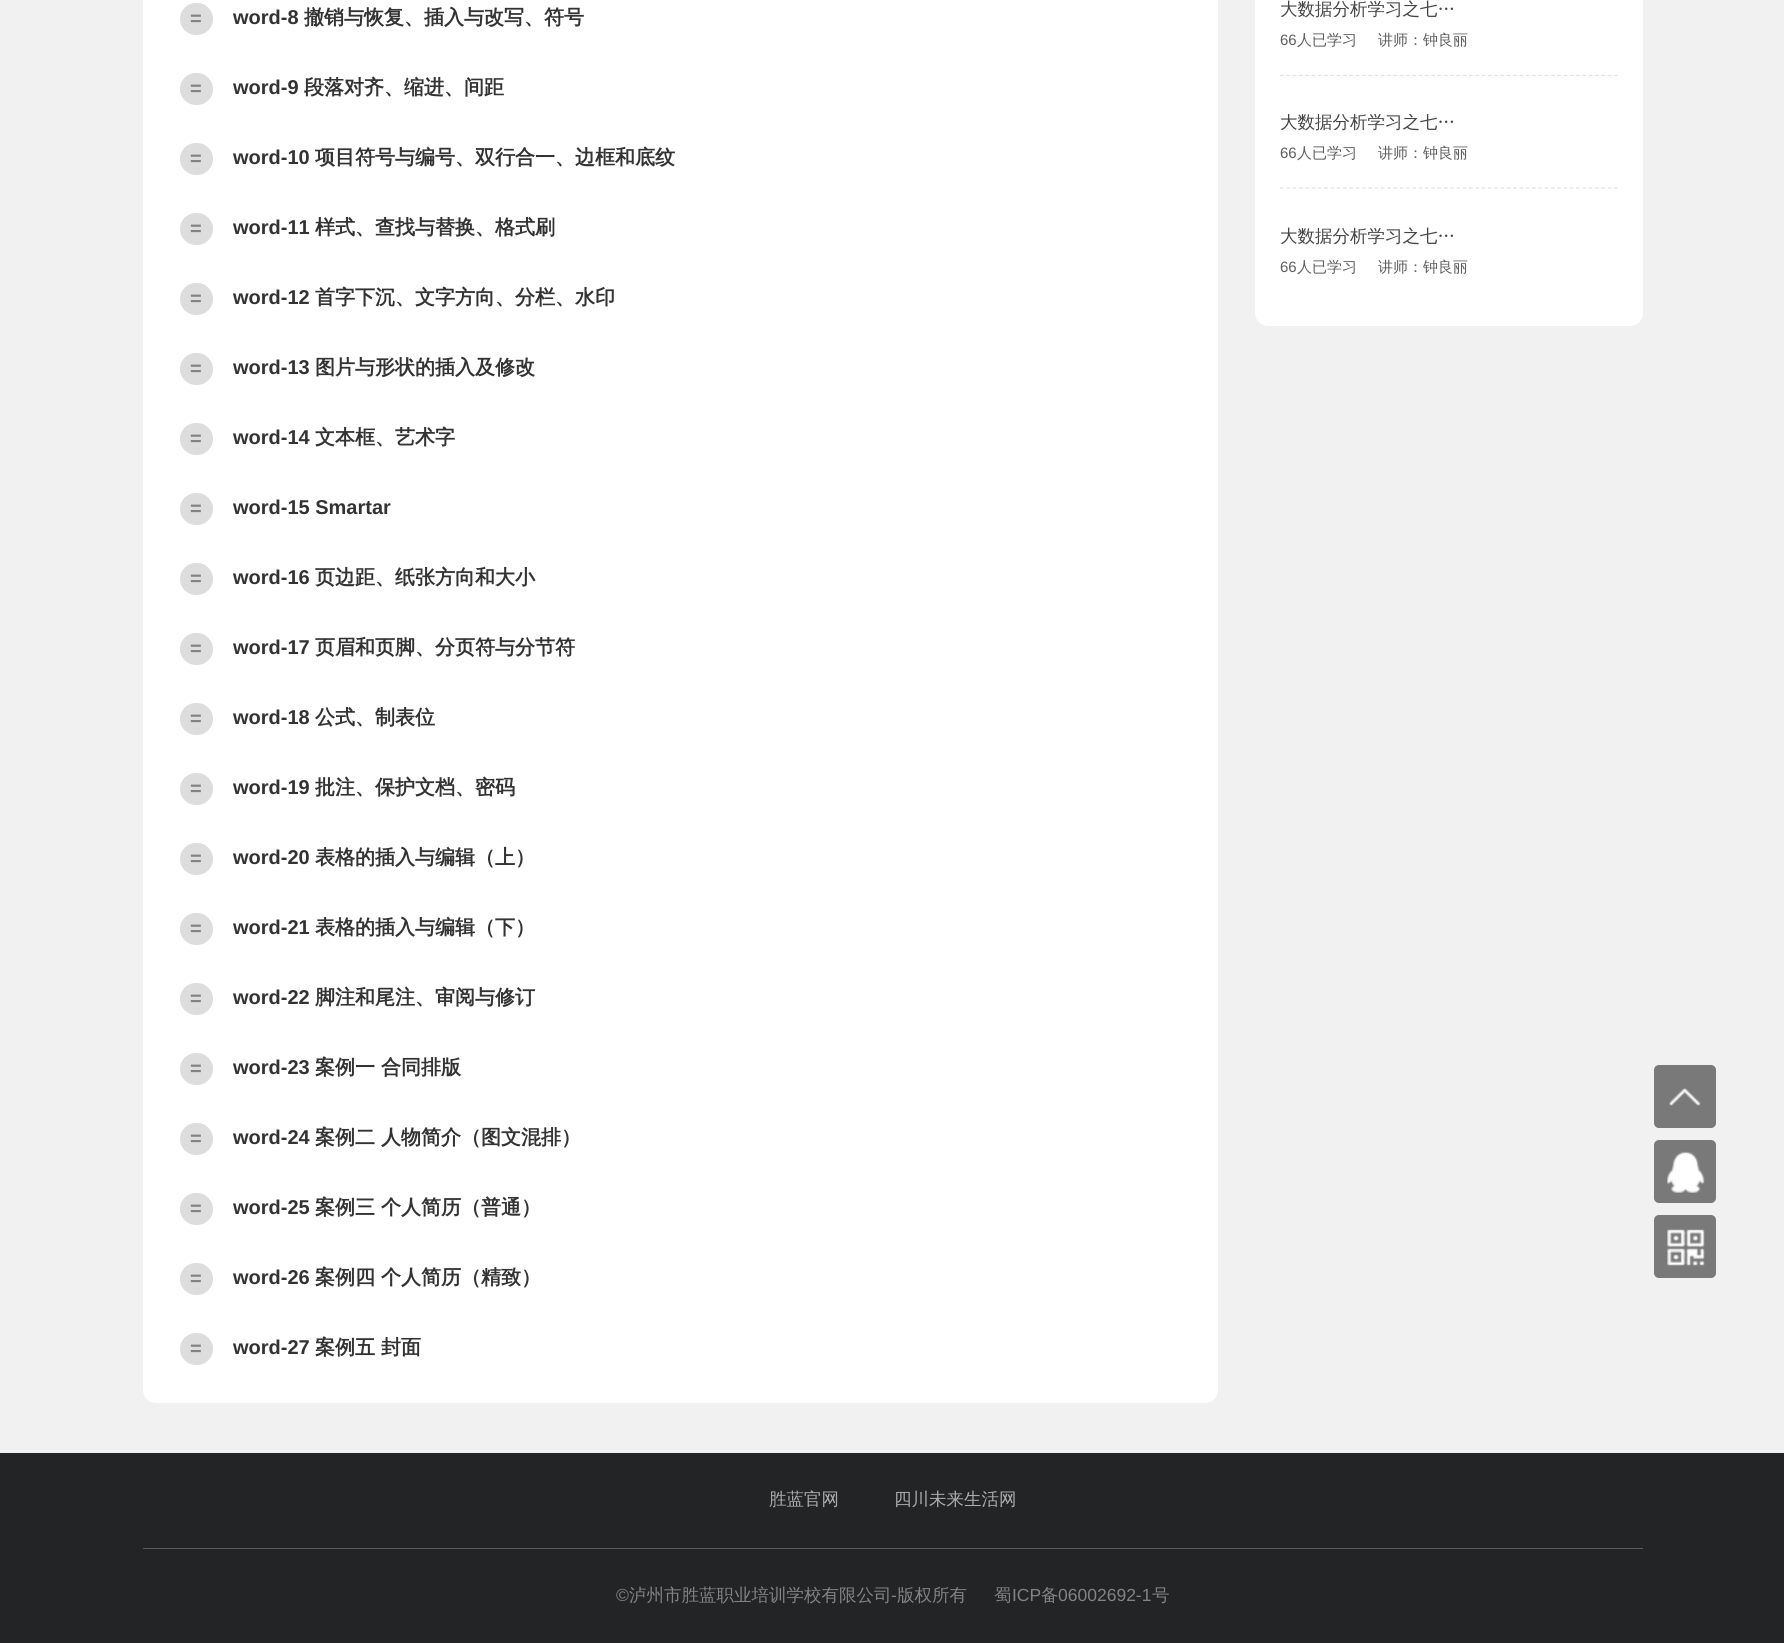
import math
import cairo

surface = cairo.ImageSurface(cairo.Format.RGB24, 1784, 1643)
ctx = cairo.Context(surface)
options = cairo.FontOptions()
options.set_hint_metrics(cairo.HintMetrics.OFF)
options.set_hint_style(cairo.HintStyle.NONE)
ctx.set_font_options(options)
ctx.set_miter_limit(4)


def ink(r, g, b):
    ctx.set_source_rgb(r / 255, g / 255, b / 255)


def write(x, y, s, family, size, color, bold=False, italic=False):
    ctx.select_font_face(family, cairo.FontSlant.ITALIC if italic else cairo.FontSlant.NORMAL, cairo.FontWeight.BOLD if bold else cairo.FontWeight.NORMAL)
    ctx.set_font_size(size)
    ink(*color)
    ctx.move_to(x, y)
    ctx.show_text(s)


def block(x, y, w, h, *color):
    ink(*color)
    ctx.rectangle(x, y, w, h)
    ctx.fill()


def round_path(x, y, w, h, r):
    ctx.new_sub_path()
    for i, (u, v) in enumerate([(x + w - r, y + h - r), (x + r, y + h - r), (x + r, y + r), (x + w - r, y + r)]):
        ctx.arc(u, v, r, i * math.pi / 2, (i + 1) * math.pi / 2)
    ctx.close_path()


def paste(path, x, y, w, h):
    ctx.save()
    ctx.set_source_surface(cairo.ImageSurface.create_from_png(path), x, y)
    ctx.rectangle(x, y, w, h)
    ctx.fill()
    ctx.restore()


s1 = dict(family="Liberation Sans", size=20, color=(131, 131, 131), bold=True)
s2 = dict(family="Liberation Sans", size=20, color=(51, 51, 51), bold=True)
s3 = dict(family="WenQuanYi Zen Hei", size=20, color=(51, 51, 51), bold=True)
s4 = dict(family="WenQuanYi Zen Hei Medium", size=17.5, color=(68, 68, 68))
s5 = dict(family="Liberation Sans", size=15, color=(94, 94, 94))
s6 = dict(family="WenQuanYi Zen Hei Medium", size=15, color=(94, 94, 94))
s7 = dict(family="WenQuanYi Zen Hei Medium", size=17.5, color=(172, 172, 172))
s8 = dict(family="Liberation Sans", size=17.5, color=(131, 131, 131))
s9 = dict(family="WenQuanYi Zen Hei Medium", size=17.5, color=(131, 131, 131))

ink(241, 241, 241)
ctx.paint()
ink(255, 255, 255)
round_path(143, -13, 1075, 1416, 13)
ctx.fill()
ink(221, 221, 221)
round_path(180, 3, 33, 32, 16)
ctx.fill()
write(190, 25, "=", **s1)
write(233, 24, "word-8", **s2)
write(304, 24, "撤销与恢复、插入与改写、符号", **s3)
ink(221, 221, 221)
round_path(180, 73, 33, 32, 16)
ctx.fill()
write(190, 95, "=", **s1)
write(233, 94, "word-9", **s2)
write(304, 94, "段落对齐、缩进、间距", **s3)
ink(221, 221, 221)
round_path(180, 143, 33, 32, 16)
ctx.fill()
write(190, 165, "=", **s1)
write(233, 164, "word-10", **s2)
write(315, 164, "项目符号与编号、双行合一、边框和底纹", **s3)
ink(221, 221, 221)
round_path(180, 213, 33, 32, 16)
ctx.fill()
write(190, 235, "=", **s1)
write(233, 234, "word-11", **s2)
write(315, 234, "样式、查找与替换、格式刷", **s3)
ink(221, 221, 221)
round_path(180, 283, 33, 32, 16)
ctx.fill()
write(190, 305, "=", **s1)
write(233, 304, "word-12", **s2)
write(315, 304, "首字下沉、文字方向、分栏、水印", **s3)
ink(221, 221, 221)
round_path(180, 353, 33, 32, 16)
ctx.fill()
write(190, 375, "=", **s1)
write(233, 374, "word-13", **s2)
write(315, 374, "图片与形状的插入及修改", **s3)
ink(221, 221, 221)
round_path(180, 423, 33, 32, 16)
ctx.fill()
write(190, 445, "=", **s1)
write(233, 444, "word-14", **s2)
write(315, 444, "文本框、艺术字", **s3)
ink(221, 221, 221)
round_path(180, 493, 33, 32, 16)
ctx.fill()
write(190, 515, "=", **s1)
write(233, 514, "word-15 Smartar", **s2)
ink(221, 221, 221)
round_path(180, 563, 33, 32, 16)
ctx.fill()
write(190, 585, "=", **s1)
write(233, 584, "word-16", **s2)
write(315, 584, "页边距、纸张方向和大小", **s3)
ink(221, 221, 221)
round_path(180, 633, 33, 32, 16)
ctx.fill()
write(190, 655, "=", **s1)
write(233, 654, "word-17", **s2)
write(315, 654, "页眉和页脚、分页符与分节符", **s3)
ink(221, 221, 221)
round_path(180, 703, 33, 32, 16)
ctx.fill()
write(190, 725, "=", **s1)
write(233, 724, "word-18", **s2)
write(315, 724, "公式、制表位", **s3)
ink(221, 221, 221)
round_path(180, 773, 33, 32, 16)
ctx.fill()
write(190, 795, "=", **s1)
write(233, 794, "word-19", **s2)
write(315, 794, "批注、保护文档、密码", **s3)
ink(221, 221, 221)
round_path(180, 843, 33, 32, 16)
ctx.fill()
write(190, 865, "=", **s1)
write(233, 864, "word-20", **s2)
write(315, 864, "表格的插入与编辑（上）", **s3)
ink(221, 221, 221)
round_path(180, 913, 33, 32, 16)
ctx.fill()
write(190, 935, "=", **s1)
write(233, 934, "word-21", **s2)
write(315, 934, "表格的插入与编辑（下）", **s3)
ink(221, 221, 221)
round_path(180, 983, 33, 32, 16)
ctx.fill()
write(190, 1005, "=", **s1)
write(233, 1004, "word-22", **s2)
write(315, 1004, "脚注和尾注、审阅与修订", **s3)
ink(221, 221, 221)
round_path(180, 1053, 33, 32, 16)
ctx.fill()
write(190, 1075, "=", **s1)
write(233, 1074, "word-23", **s2)
write(315, 1074, "案例一 合同排版", **s3)
ink(221, 221, 221)
round_path(180, 1123, 33, 32, 16)
ctx.fill()
write(190, 1145, "=", **s1)
write(233, 1144, "word-24", **s2)
write(315, 1144, "案例二 人物简介（图文混排）", **s3)
ink(221, 221, 221)
round_path(180, 1193, 33, 32, 16)
ctx.fill()
write(190, 1215, "=", **s1)
write(233, 1214, "word-25", **s2)
write(315, 1214, "案例三 个人简历（普通）", **s3)
ink(221, 221, 221)
round_path(180, 1263, 33, 32, 16)
ctx.fill()
write(190, 1285, "=", **s1)
write(233, 1284, "word-26", **s2)
write(315, 1284, "案例四 个人简历（精致）", **s3)
ink(221, 221, 221)
round_path(180, 1333, 33, 32, 16)
ctx.fill()
write(190, 1355, "=", **s1)
write(233, 1354, "word-27", **s2)
write(315, 1354, "案例五 封面", **s3)
ink(255, 255, 255)
round_path(1255, -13, 388, 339, 13)
ctx.fill()
write(1280, 15, "大数据分析学习之七…", **s4)
write(1280, 45, "66", **s5)
write(1297, 45, "人已学习", **s6)
write(1378, 45, "讲师：钟良丽", **s6)
ctx.new_path()
ctx.move_to(1280, 75.5)
ctx.line_to(1617.5, 75.5)
ink(226, 226, 226)
ctx.set_line_width(1.2)
ctx.set_dash([3.75, 2.55])
ctx.stroke()
ctx.save()
ctx.rectangle(1280, 114, 188, 20)
ctx.clip()
write(1280, 128, "大数据分析学习之七…", **s4)
ctx.restore()
write(1280, 158, "66", **s5)
write(1297, 158, "人已学习", **s6)
write(1378, 158, "讲师：钟良丽", **s6)
ctx.new_path()
ctx.move_to(1280, 188)
ctx.line_to(1617.5, 188)
ink(226, 226, 226)
ctx.stroke()
write(1280, 242, "大数据分析学习之七…", **s4)
write(1280, 272, "66", **s5)
write(1297, 272, "人已学习", **s6)
write(1378, 272, "讲师：钟良丽", **s6)
ink(121, 121, 121)
round_path(1654, 1065, 62, 63, 5)
ctx.fill()
paste("pic1.png", 1669, 1088, 32, 18)
round_path(1654, 1140, 62, 63, 5)
ctx.fill()
paste("pic2.png", 1667, 1151, 38, 42)
round_path(1654, 1215, 62, 63, 5)
ctx.fill()
paste("pic3.png", 1667, 1229, 38, 37)
block(0, 1453, 1784, 190, 35, 36, 38)
write(769, 1505, "胜蓝官网", **s7)
write(894, 1505, "四川未来生活网", **s7)
block(143, 1548, 1500, 1, 90, 90, 90)
write(616, 1601, "©", **s8)
write(629, 1601, "泸州市胜蓝职业培训学校有限公司", **s9)
write(891, 1601, "-", **s8)
write(897, 1601, "版权所有", **s9)
write(994, 1601, "蜀", **s9)
write(1012, 1601, "ICP", **s8)
write(1041, 1601, "备", **s9)
write(1058, 1601, "06002692-1", **s8)
write(1152, 1601, "号", **s9)
surface.write_to_png("screenshot.png")
